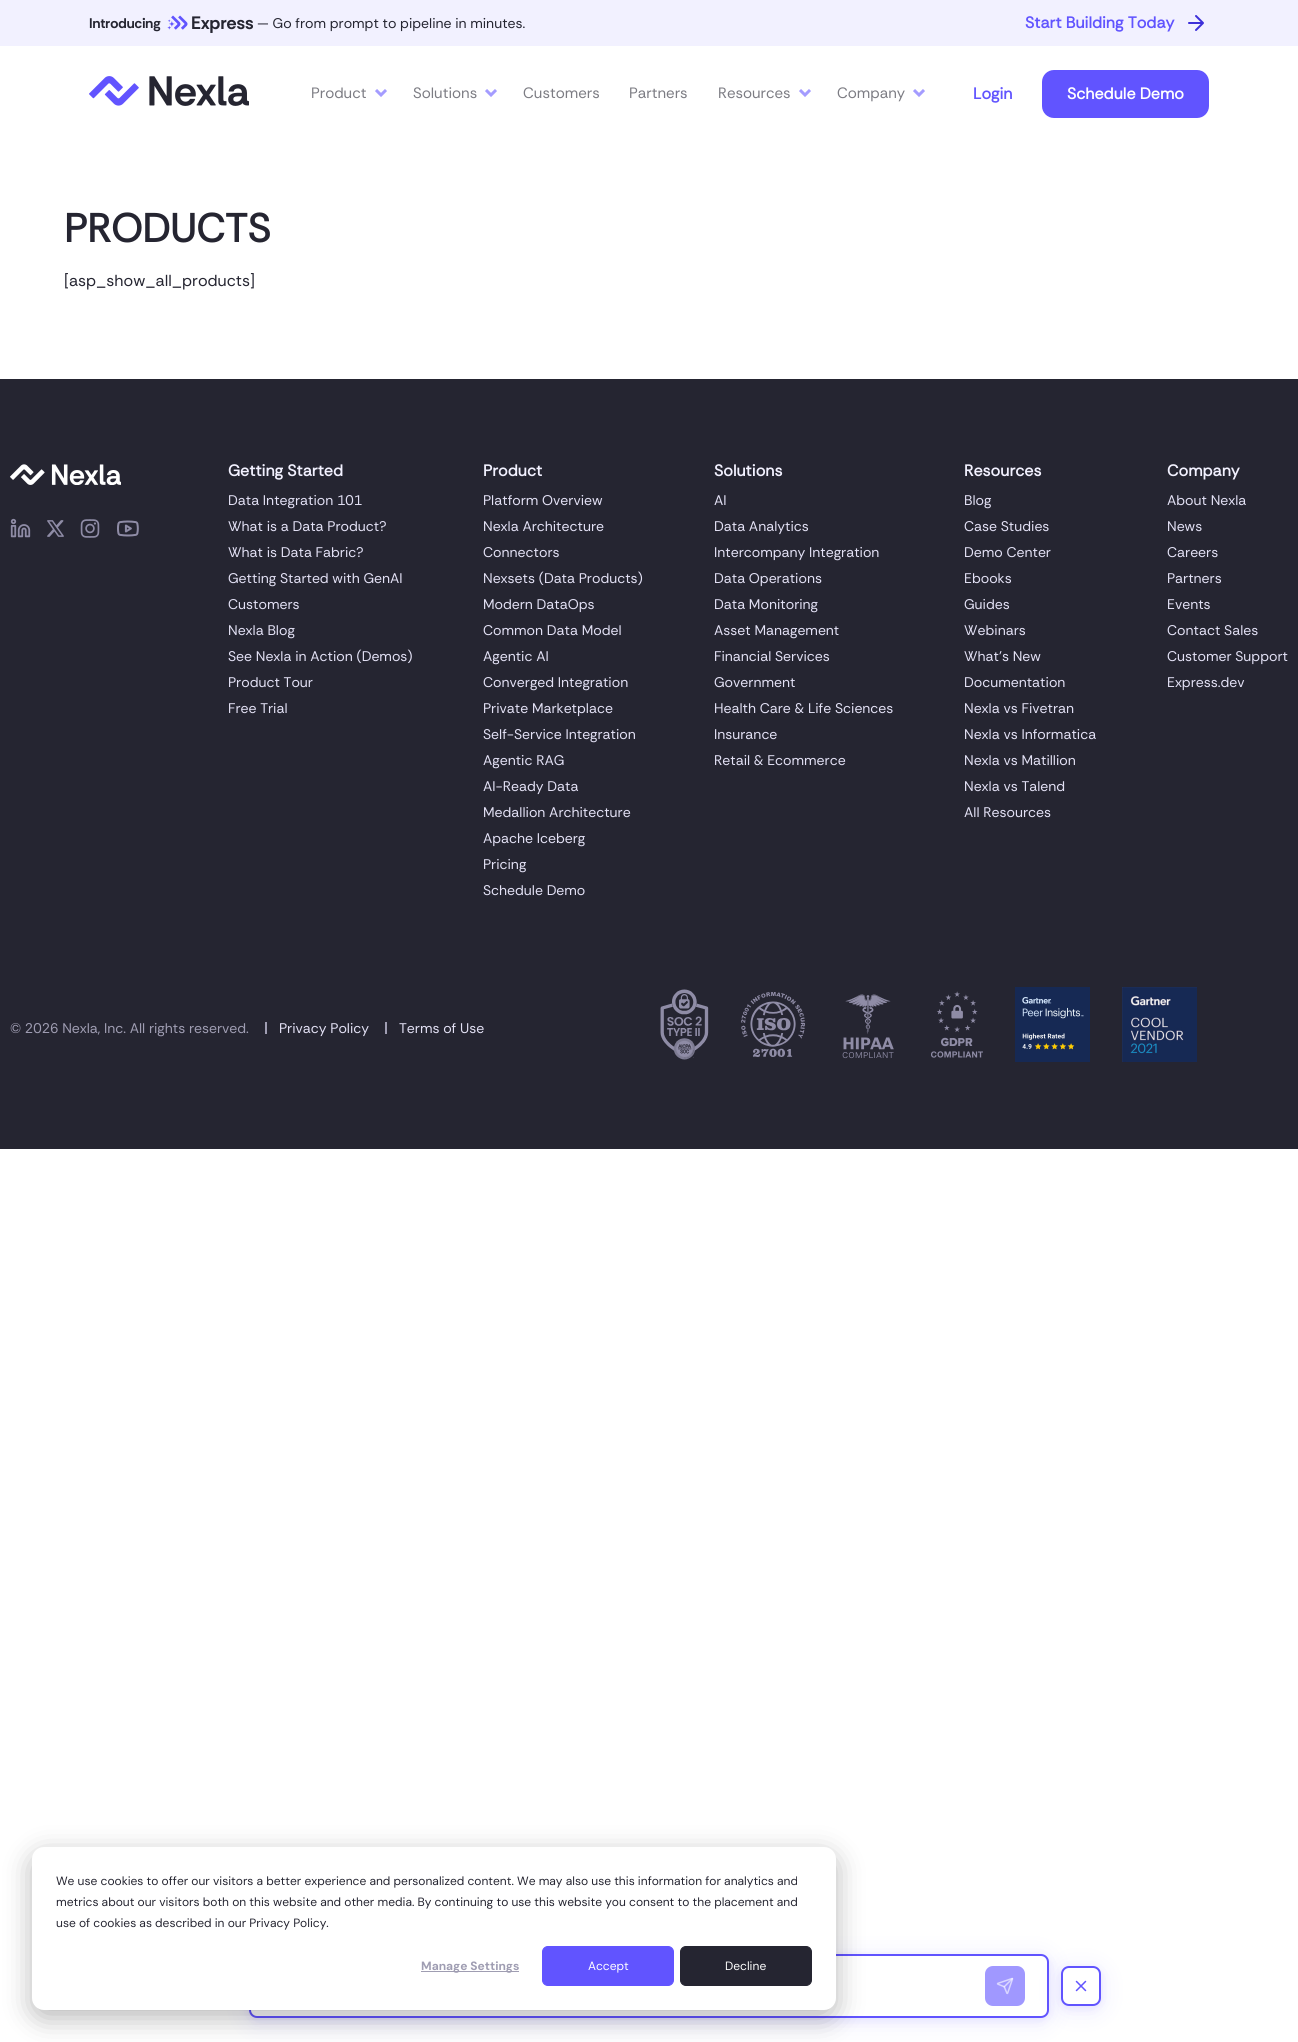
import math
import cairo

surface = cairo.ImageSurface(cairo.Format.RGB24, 1298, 2042)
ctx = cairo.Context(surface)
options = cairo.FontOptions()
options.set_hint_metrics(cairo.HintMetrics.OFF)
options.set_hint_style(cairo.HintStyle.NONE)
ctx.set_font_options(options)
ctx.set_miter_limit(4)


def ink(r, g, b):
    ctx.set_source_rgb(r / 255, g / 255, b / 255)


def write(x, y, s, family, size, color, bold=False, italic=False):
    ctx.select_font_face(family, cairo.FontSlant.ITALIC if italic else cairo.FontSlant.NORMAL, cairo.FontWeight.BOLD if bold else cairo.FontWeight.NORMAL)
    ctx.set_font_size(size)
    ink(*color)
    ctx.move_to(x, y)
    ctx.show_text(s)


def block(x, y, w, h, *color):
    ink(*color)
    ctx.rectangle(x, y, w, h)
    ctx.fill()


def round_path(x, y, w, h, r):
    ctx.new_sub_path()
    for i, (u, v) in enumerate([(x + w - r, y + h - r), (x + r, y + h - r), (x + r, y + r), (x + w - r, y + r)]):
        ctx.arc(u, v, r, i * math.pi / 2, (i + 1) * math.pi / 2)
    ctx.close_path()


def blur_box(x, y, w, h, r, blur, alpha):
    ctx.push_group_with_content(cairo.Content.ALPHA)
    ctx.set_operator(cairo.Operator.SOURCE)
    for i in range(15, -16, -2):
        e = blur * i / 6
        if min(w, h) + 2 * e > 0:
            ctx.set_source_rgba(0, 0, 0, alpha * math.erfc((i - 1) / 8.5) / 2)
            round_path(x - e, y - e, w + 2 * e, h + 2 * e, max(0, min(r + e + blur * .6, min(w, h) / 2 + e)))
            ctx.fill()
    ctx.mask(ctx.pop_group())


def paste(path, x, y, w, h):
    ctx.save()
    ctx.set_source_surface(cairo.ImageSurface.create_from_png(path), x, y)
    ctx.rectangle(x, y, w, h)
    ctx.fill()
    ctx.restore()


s1 = dict(family="Rethink Sans Thin", size=14, color=(37, 37, 49))
s2 = dict(family="Rethink Sans Thin", size=18, color=(37, 37, 49))
s3 = dict(family="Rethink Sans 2 Thin", size=14, color=(37, 37, 49))
s4 = dict(family="Rethink Sans", size=16, color=(97, 84, 255), bold=True)
s5 = dict(family="Rethink Sans 2 Thin", size=15, color=(124, 124, 131))
s6 = dict(family="Rethink Sans", size=16, color=(255, 255, 255), bold=True)
s7 = dict(family="Rethink Sans", size=40, color=(37, 37, 49), bold=True)
s8 = dict(family="Rethink Sans 2 Thin", size=16, color=(37, 37, 49))
s9 = dict(family="Rethink Sans", size=16, color=(242, 241, 255), bold=True)
s10 = dict(family="Rethink Sans 2 Thin", size=14, color=(227, 225, 245))
s11 = dict(family="Rethink Sans 2 Thin", size=14, color=(159, 157, 178))
s12 = dict(family="DM Sans", size=12, color=(37, 37, 49))
s13 = dict(family="DM Sans", size=12, color=(159, 157, 178), bold=True)
s14 = dict(family="DM Sans", size=12, color=(255, 255, 255))

ink(255, 255, 255)
ctx.paint()
block(0, 0, 1298, 46, 242, 241, 255)
write(89, 28, "Introducing", **s1)
paste("pic1.png", 167, 15, 21, 15)
write(191, 29, "Express", **s2)
write(257, 28, "— Go from prompt to pipeline in minutes.", **s3)
write(1025, 28, "Start Building Today", **s4)
ctx.new_path()
ctx.move_to(1189, 23)
ctx.line_to(1203, 23)
ctx.move_to(1196, 16)
ctx.line_to(1203, 23)
ctx.line_to(1196, 30)
ink(61, 47, 217)
ctx.set_line_cap(cairo.LineCap.ROUND)
ctx.set_line_join(cairo.LineJoin.ROUND)
ctx.stroke()
paste("pic2.png", 89, 76, 160, 30)
write(311, 98, "Product", **s5)
ctx.new_path()
ctx.move_to(376, 90)
ctx.line_to(381, 95)
ctx.line_to(386, 90)
ink(164, 156, 255)
ctx.set_line_width(3)
ctx.set_line_cap(cairo.LineCap.BUTT)
ctx.set_line_join(cairo.LineJoin.MITER)
ctx.stroke()
write(413, 98, "Solutions", **s5)
ctx.new_path()
ctx.move_to(486, 90)
ctx.line_to(491, 95)
ctx.line_to(496, 90)
ink(164, 156, 255)
ctx.stroke()
write(523, 98, "Customers", **s5)
write(629, 98, "Partners", **s5)
write(718, 98, "Resources", **s5)
ctx.new_path()
ctx.move_to(800, 90)
ctx.line_to(805, 95)
ctx.line_to(810, 90)
ink(164, 156, 255)
ctx.stroke()
write(837, 98, "Company", **s5)
ctx.new_path()
ctx.move_to(914, 90)
ctx.line_to(919, 95)
ctx.line_to(924, 90)
ink(164, 156, 255)
ctx.stroke()
write(973, 99, "Login", **s4)
round_path(1042, 70, 167, 48, 12)
ctx.fill()
write(1067, 99, "Schedule Demo", **s6)
write(64, 242, "PRODUCTS", **s7)
write(64, 286, "[asp_show_all_products]", **s8)
block(0, 379, 1298, 770, 37, 37, 49)
paste("pic3.png", 10, 464, 111, 21)
paste("pic4.png", 10, 518, 21, 20)
paste("pic5.png", 47, 520, 17, 17)
paste("pic6.png", 80, 519, 20, 19)
paste("pic7.png", 117, 520, 22, 17)
write(228, 476, "Getting Started", **s9)
write(228, 505, "Data Integration 101", **s10)
write(228, 531, "What is a Data Product?", **s10)
write(228, 557, "What is Data Fabric?", **s10)
write(228, 583, "Getting Started with GenAI", **s10)
write(228, 609, "Customers", **s10)
write(228, 635, "Nexla Blog", **s10)
write(228, 661, "See Nexla in Action (Demos)", **s10)
write(228, 687, "Product Tour", **s10)
write(228, 713, "Free Trial", **s10)
write(483, 476, "Product", **s9)
write(483, 505, "Platform Overview", **s10)
write(483, 531, "Nexla Architecture", **s10)
write(483, 557, "Connectors", **s10)
write(483, 583, "Nexsets (Data Products)", **s10)
write(483, 609, "Modern DataOps", **s10)
write(483, 635, "Common Data Model", **s10)
write(483, 661, "Agentic AI", **s10)
write(483, 687, "Converged Integration", **s10)
write(483, 713, "Private Marketplace", **s10)
write(483, 739, "Self-Service Integration", **s10)
write(483, 765, "Agentic RAG", **s10)
write(483, 791, "AI-Ready Data", **s10)
write(483, 817, "Medallion Architecture", **s10)
write(483, 843, "Apache Iceberg", **s10)
write(483, 869, "Pricing", **s10)
write(483, 895, "Schedule Demo", **s10)
write(714, 476, "Solutions", **s9)
write(714, 505, "AI", **s10)
write(714, 531, "Data Analytics", **s10)
write(714, 557, "Intercompany Integration", **s10)
write(714, 583, "Data Operations", **s10)
write(714, 609, "Data Monitoring", **s10)
write(714, 635, "Asset Management", **s10)
write(714, 661, "Financial Services", **s10)
write(714, 687, "Government", **s10)
write(714, 713, "Health Care & Life Sciences", **s10)
write(714, 739, "Insurance", **s10)
write(714, 765, "Retail & Ecommerce", **s10)
write(964, 476, "Resources", **s9)
write(964, 505, "Blog", **s10)
write(964, 531, "Case Studies", **s10)
write(964, 557, "Demo Center", **s10)
write(964, 583, "Ebooks", **s10)
write(964, 609, "Guides", **s10)
write(964, 635, "Webinars", **s10)
write(964, 661, "What's New", **s10)
write(964, 687, "Documentation", **s10)
write(964, 713, "Nexla vs Fivetran", **s10)
write(964, 739, "Nexla vs Informatica", **s10)
write(964, 765, "Nexla vs Matillion", **s10)
write(964, 791, "Nexla vs Talend", **s10)
write(964, 817, "All Resources", **s10)
write(1167, 476, "Company", **s9)
write(1167, 505, "About Nexla", **s10)
write(1167, 531, "News", **s10)
write(1167, 557, "Careers", **s10)
write(1167, 583, "Partners", **s10)
write(1167, 609, "Events", **s10)
write(1167, 635, "Contact Sales", **s10)
write(1167, 661, "Customer Support", **s10)
write(1167, 687, "Express.dev", **s10)
write(10, 1033, "© 2026 Nexla, Inc. All rights reserved.", **s11)
block(265, 1022, 2, 12, 159, 157, 178)
write(279, 1033, "Privacy Policy", **s10)
block(385, 1022, 2, 12, 159, 157, 178)
write(399, 1033, "Terms of Use", **s10)
paste("pic8.png", 660, 989, 49, 71)
paste("pic9.png", 741, 992, 64, 65)
paste("pic10.png", 842, 994, 52, 65)
paste("pic11.png", 931, 991, 52, 67)
paste("pic12.png", 1015, 987, 75, 75)
paste("pic13.png", 1122, 987, 75, 75)
ink(97, 84, 255)
blur_box(249, 1956, 800, 64, 8, 4, 0.1)
blur_box(249, 1958, 800, 64, 8, 12, 0.13)
ink(255, 255, 255)
round_path(250, 1955, 798, 62, 7)
ctx.fill_preserve()
ink(97, 84, 255)
ctx.set_line_width(2)
ctx.stroke()
ink(0, 0, 0)
blur_box(32, 1855, 804, 163, 12, 14, 0.28)
ink(255, 255, 255)
round_path(32, 1847, 804, 163, 12)
ctx.fill()
write(56, 1885, "We use cookies to offer our visitors a better experience and personalized content. We may also use this information for analytics and", **s12)
write(56, 1906, "metrics about our visitors both on this website and other media. By continuing to use this website you consent to the placement and", **s12)
write(56, 1927, "use of cookies as described in our Privacy Policy.", **s12)
block(421, 1971, 98, 1, 159, 157, 178)
write(421, 1970, "Manage Settings", **s13)
ink(97, 84, 255)
round_path(542.5, 1946.5, 131, 39, 5.5)
ctx.fill_preserve()
ctx.set_line_width(1)
ctx.stroke()
write(588, 1970, "Accept", **s14)
ink(37, 37, 49)
round_path(680.5, 1946.5, 131, 39, 5.5)
ctx.fill_preserve()
ctx.stroke()
write(725, 1970, "Decline", **s14)
ink(160, 152, 255)
round_path(985, 1966, 40, 40, 8)
ctx.fill()
paste("pic14.png", 996, 1977, 18, 18)
ink(97, 84, 255)
blur_box(1061, 1968, 40, 40, 8, 4, 0.1)
blur_box(1061, 1970, 40, 40, 8, 12, 0.13)
ink(255, 255, 255)
round_path(1062, 1967, 38, 38, 7)
ctx.fill_preserve()
ink(97, 84, 255)
ctx.set_line_width(2)
ctx.stroke()
ctx.new_path()
ctx.move_to(1085.5, 1981.5)
ctx.line_to(1076.5, 1990.5)
ctx.move_to(1076.5, 1981.5)
ctx.line_to(1085.5, 1990.5)
ctx.set_line_width(1.5)
ctx.set_line_cap(cairo.LineCap.ROUND)
ctx.set_line_join(cairo.LineJoin.ROUND)
ctx.stroke()
surface.write_to_png("screenshot.png")
